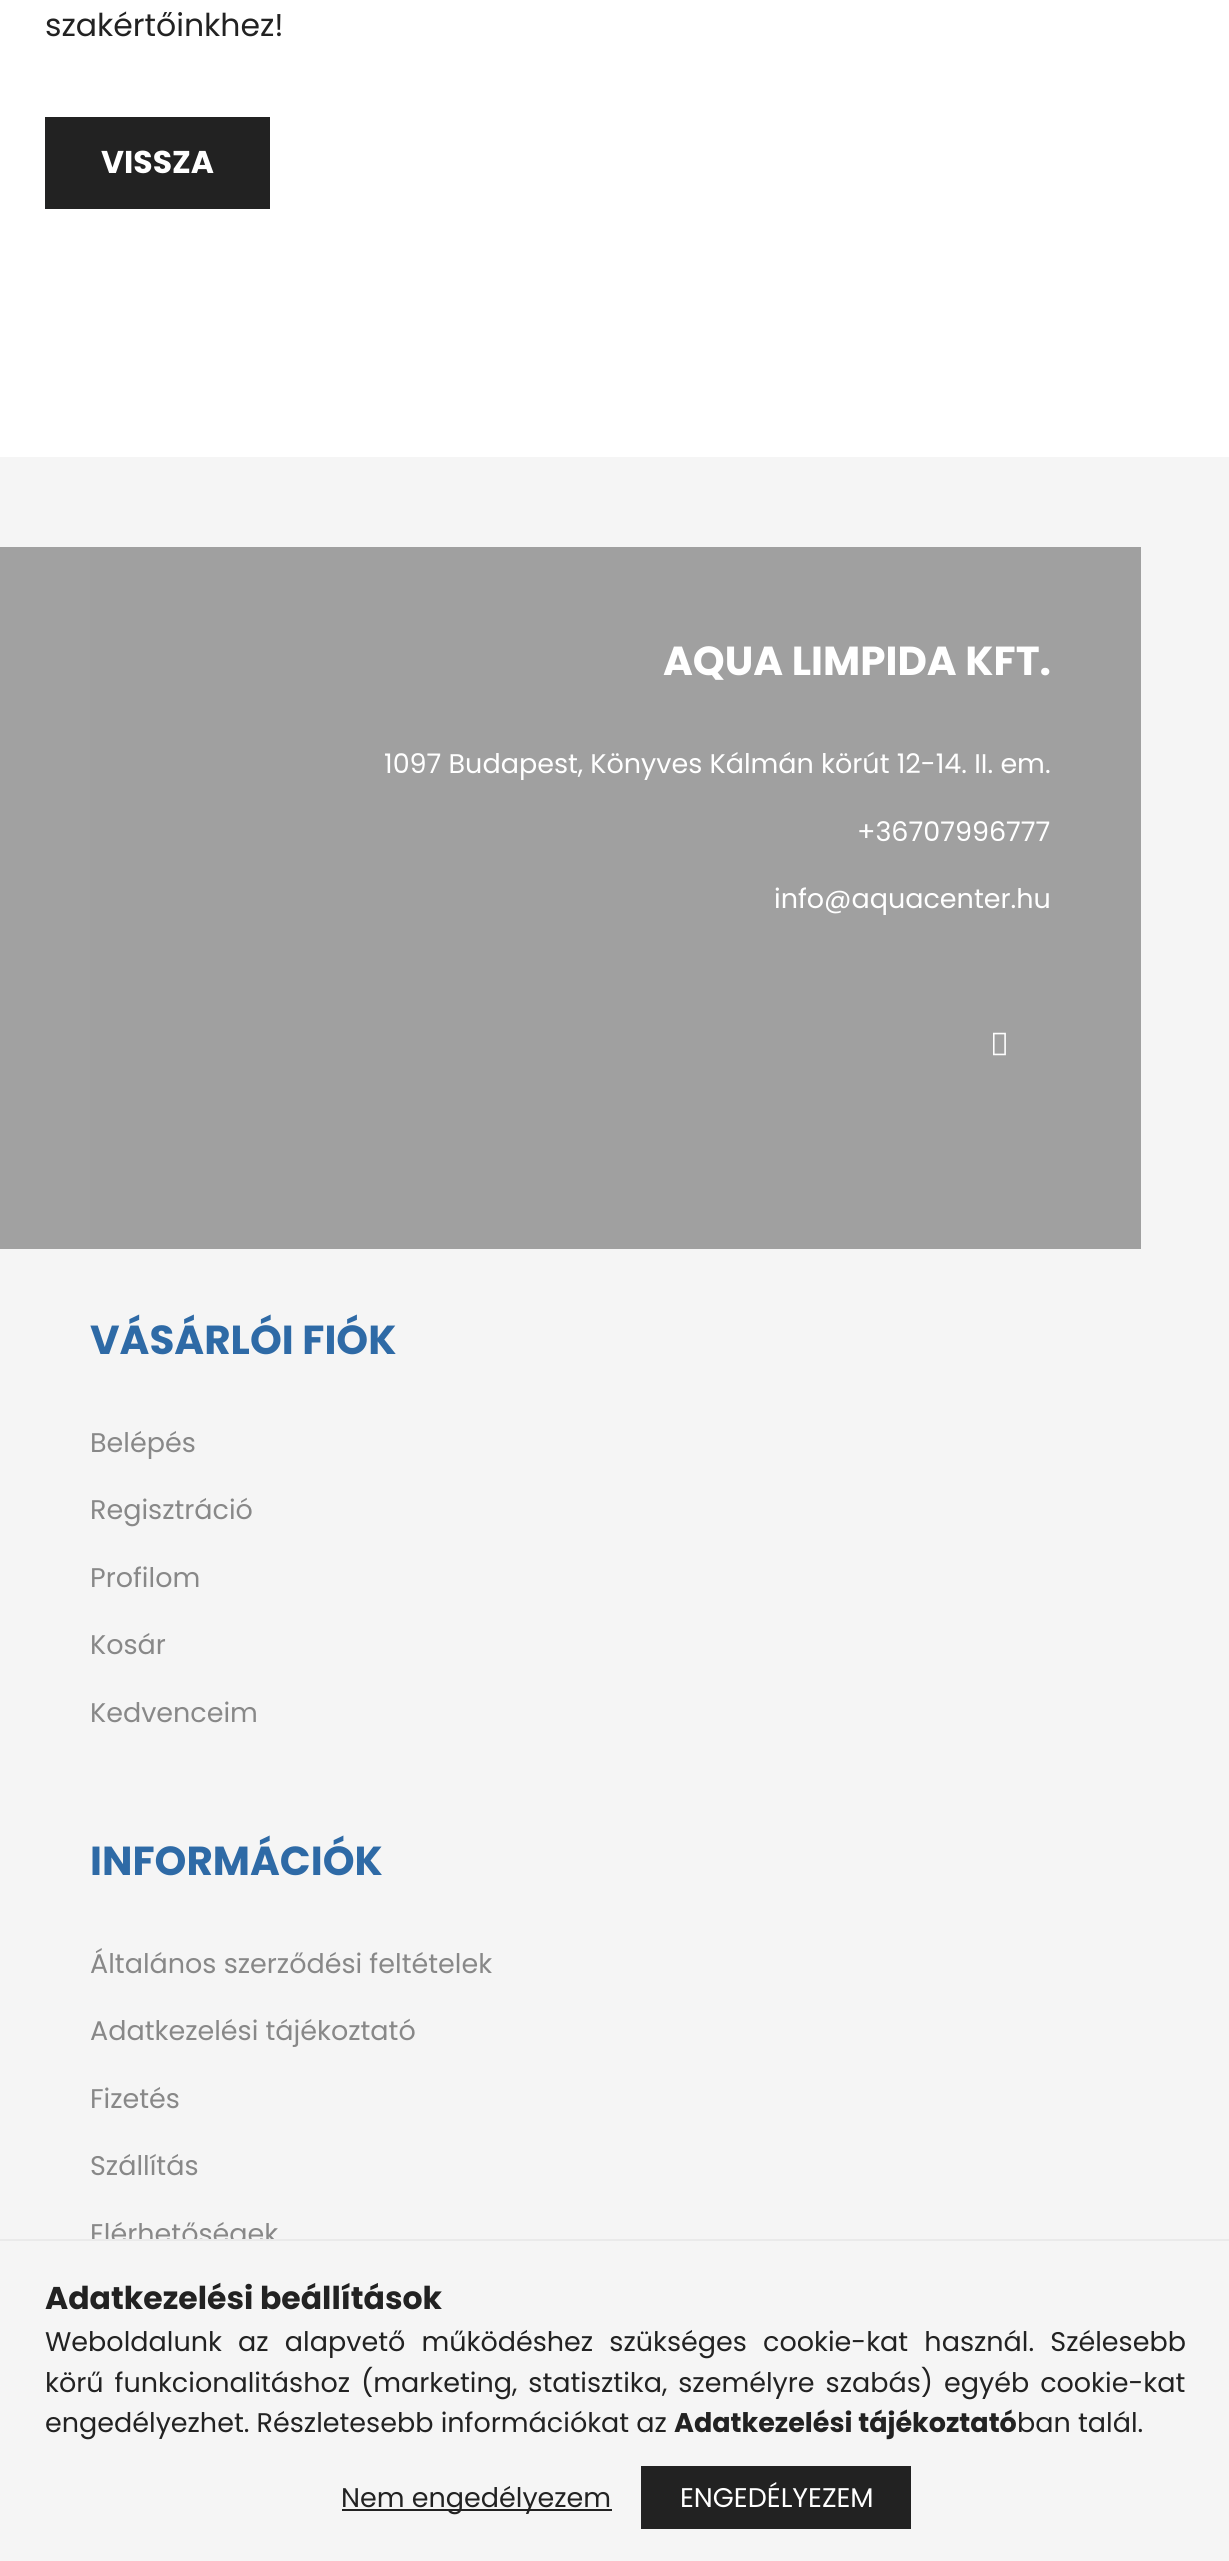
import math
import cairo

surface = cairo.ImageSurface(cairo.Format.RGB24, 1229, 2561)
ctx = cairo.Context(surface)
options = cairo.FontOptions()
options.set_hint_metrics(cairo.HintMetrics.OFF)
options.set_hint_style(cairo.HintStyle.NONE)
ctx.set_font_options(options)
ctx.set_miter_limit(4)


def ink(r, g, b):
    ctx.set_source_rgb(r / 255, g / 255, b / 255)


def write(x, y, s, family, size, color, bold=False, italic=False):
    ctx.select_font_face(family, cairo.FontSlant.ITALIC if italic else cairo.FontSlant.NORMAL, cairo.FontWeight.BOLD if bold else cairo.FontWeight.NORMAL)
    ctx.set_font_size(size)
    ink(*color)
    ctx.move_to(x, y)
    ctx.show_text(s)


def write_spaced(x, y, s, letter, word):
    ctx.move_to(x, y)
    for ch in s:
        ctx.show_text(ch)
        ctx.rel_move_to(letter + word * (ch == ' '), 0)


def block(x, y, w, h, *color):
    ink(*color)
    ctx.rectangle(x, y, w, h)
    ctx.fill()


def paste(path, x, y, w, h):
    ctx.save()
    ctx.set_source_surface(cairo.ImageSurface.create_from_png(path), x, y)
    ctx.rectangle(x, y, w, h)
    ctx.fill()
    ctx.restore()


s1 = dict(family="Poppins", size=31.5, color=(34, 34, 34))
s2 = dict(family="Poppins", size=31.5, color=(255, 255, 255), bold=True)
s3 = dict(family="Poppins", size=40.5, color=(255, 255, 255), bold=True)
s4 = dict(family="Poppins", size=27, color=(255, 255, 255))
s5 = dict(family="Poppins", size=40.5, color=(46, 106, 166), bold=True)
s6 = dict(family="Poppins", size=27, color=(136, 136, 136))
s7 = dict(family="Poppins", size=31.5, color=(34, 34, 34), bold=True)
s8 = dict(family="Poppins", size=27, color=(34, 34, 34))
s9 = dict(family="Poppins", size=27, color=(34, 34, 34), bold=True)

ink(255, 255, 255)
ctx.paint()
write(45, 36, "szakértőinkhez!", **s1)
gradient = cairo.LinearGradient(-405, 163, 270, 163)
gradient.add_color_stop_rgba(0, 0.18, 0.416, 0.651, 1)
gradient.add_color_stop_rgba(0.33, 0.769, 0.878, 1, 1)
gradient.add_color_stop_rgba(0.67, 0.133, 0.133, 0.133, 1)
gradient.add_color_stop_rgba(1, 0.133, 0.133, 0.133, 1)
ctx.set_source(gradient)
ctx.rectangle(45, 117, 225, 92)
ctx.fill()
write(101, 173, "VISSZA", **s2)
block(0, 457, 1229, 1782, 245, 245, 245)
block(90, 547, 1051, 702, 160, 160, 160)
block(0, 547, 90, 702, 161, 161, 161)
write(663, 675, "AQUA LIMPIDA KFT.", **s3)
write(384, 773, "1097 Budapest, Könyves Kálmán körút 12-14. II. em.", **s4)
write(857, 841, "+36707996777", **s4)
write(774, 908, "info@aquacenter.hu", **s4)
paste("pic1.png", 993, 1032, 13, 24)
write(90, 1354, "VÁSÁRLÓI FIÓK", **s5)
write(90, 1452, "Belépés", **s6)
write(90, 1519, "Regisztráció", **s6)
write(90, 1587, "Profilom", **s6)
write(90, 1654, "Kosár", **s6)
write(90, 1722, "Kedvenceim", **s6)
write(90, 1875, "INFORMÁCIÓK", **s5)
write(90, 1973, "Általános szerződési feltételek", **s6)
write(90, 2040, "Adatkezelési tájékoztató", **s6)
write(90, 2108, "Fizetés", **s6)
write(90, 2175, "Szállítás", **s6)
write(90, 2243, "Elérhetőségek", **s6)
block(0, 2241, 1229, 320, 245, 245, 245)
block(0, 2239, 1229, 2, 234, 234, 234)
write(45, 2309, "Adatkezelési beállítások", **s7)
ctx.select_font_face("Poppins")
ctx.set_font_size(27)
write_spaced(45, 2351, "Weboldalunk az alapvető működéshez szükséges cookie-kat használ. Szélesebb", 0, 9)
write_spaced(45, 2392, "körű funkcionalitáshoz (marketing, statisztika, személyre szabás) egyéb cookie-kat", 0, 3.75)
write(45, 2432, "engedélyezhet. Részletesebb információkat az", **s8)
write(674, 2432, "Adatkezelési tájékoztató", **s9)
write(1017, 2432, "ban talál.", **s8)
block(342, 2509, 270, 2, 34, 34, 34)
write(341, 2507, "Nem engedélyezem", **s8)
gradient = cairo.LinearGradient(101, 2498, 911, 2498)
gradient.add_color_stop_rgba(0, 0.18, 0.416, 0.651, 1)
gradient.add_color_stop_rgba(0.33, 0.769, 0.878, 1, 1)
gradient.add_color_stop_rgba(0.67, 0.133, 0.133, 0.133, 1)
gradient.add_color_stop_rgba(1, 0.133, 0.133, 0.133, 1)
ctx.set_source(gradient)
ctx.rectangle(641, 2466, 270, 63)
ctx.fill()
write(680, 2507, "ENGEDÉLYEZEM", **s4)
surface.write_to_png("screenshot.png")
